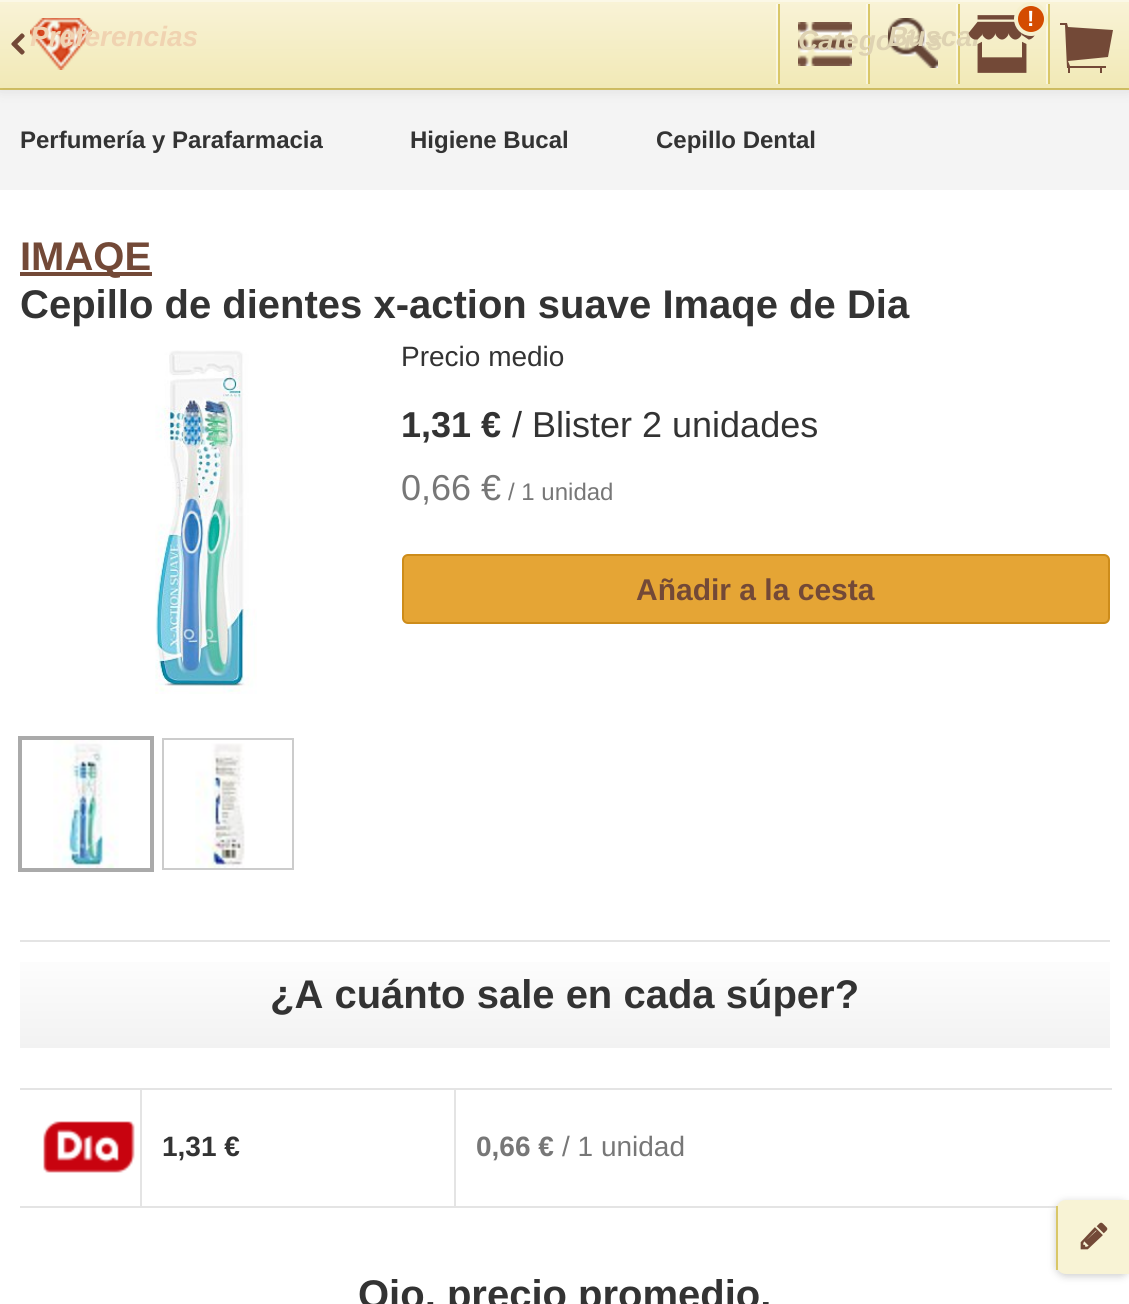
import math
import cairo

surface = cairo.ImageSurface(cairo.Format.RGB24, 1129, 1304)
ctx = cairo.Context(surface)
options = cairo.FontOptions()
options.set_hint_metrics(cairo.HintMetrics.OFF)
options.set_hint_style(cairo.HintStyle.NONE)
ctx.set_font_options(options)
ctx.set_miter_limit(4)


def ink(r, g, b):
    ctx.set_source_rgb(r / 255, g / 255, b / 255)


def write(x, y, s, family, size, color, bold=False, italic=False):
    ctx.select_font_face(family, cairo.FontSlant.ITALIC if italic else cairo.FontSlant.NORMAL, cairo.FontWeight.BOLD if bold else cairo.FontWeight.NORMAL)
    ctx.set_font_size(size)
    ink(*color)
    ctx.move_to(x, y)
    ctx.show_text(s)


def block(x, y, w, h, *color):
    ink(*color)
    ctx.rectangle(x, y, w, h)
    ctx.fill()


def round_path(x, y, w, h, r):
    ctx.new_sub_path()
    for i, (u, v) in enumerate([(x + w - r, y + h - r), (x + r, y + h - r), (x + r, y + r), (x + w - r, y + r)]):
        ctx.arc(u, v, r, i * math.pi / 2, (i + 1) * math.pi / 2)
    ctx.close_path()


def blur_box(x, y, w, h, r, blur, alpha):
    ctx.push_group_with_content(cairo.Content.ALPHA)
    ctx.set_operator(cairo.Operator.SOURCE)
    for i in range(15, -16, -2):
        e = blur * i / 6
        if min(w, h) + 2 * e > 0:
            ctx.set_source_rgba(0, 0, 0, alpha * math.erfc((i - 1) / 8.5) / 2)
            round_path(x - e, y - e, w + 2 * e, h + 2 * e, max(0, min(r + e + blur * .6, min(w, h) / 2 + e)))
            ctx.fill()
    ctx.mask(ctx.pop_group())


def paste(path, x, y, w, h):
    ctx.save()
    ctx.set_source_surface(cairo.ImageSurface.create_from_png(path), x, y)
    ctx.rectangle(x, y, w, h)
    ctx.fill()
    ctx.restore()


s1 = dict(family="Liberation Sans", size=28, color=(240, 211, 177), bold=True, italic=True)
s2 = dict(family="Liberation Sans", size=28, color=(222, 210, 178), bold=True, italic=True)
s3 = dict(family="Liberation Sans", size=22, color=(255, 255, 255), bold=True)
s4 = dict(family="Liberation Sans", size=24, color=(51, 51, 51), bold=True)
s5 = dict(family="Liberation Sans", size=40, color=(115, 73, 55), bold=True)
s6 = dict(family="Liberation Sans", size=40, color=(51, 51, 51), bold=True)
s7 = dict(family="Liberation Sans", size=28, color=(51, 51, 51))
s8 = dict(family="Liberation Sans", size=36, color=(51, 51, 51), bold=True)
s9 = dict(family="Liberation Sans", size=36, color=(51, 51, 51))
s10 = dict(family="Liberation Sans", size=36, color=(119, 119, 119))
s11 = dict(family="Liberation Sans", size=24, color=(119, 119, 119))
s12 = dict(family="Liberation Sans", size=30, color=(115, 73, 55), bold=True)
s13 = dict(family="Liberation Sans", size=28, color=(51, 51, 51), bold=True)
s14 = dict(family="Liberation Sans", size=28, color=(119, 119, 119), bold=True)
s15 = dict(family="Liberation Sans", size=28, color=(119, 119, 119))

ink(255, 255, 255)
ctx.paint()
block(0, 88, 1129, 2, 217, 199, 104)
block(0, 90, 1129, 100, 244, 244, 244)
ink(0, 0, 0)
blur_box(0, 2, 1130, 88, 0, 7, 0.1)
gradient = cairo.LinearGradient(565, 0, 565, 88)
gradient.add_color_stop_rgba(0, 0.976, 0.953, 0.843, 1)
gradient.add_color_stop_rgba(1, 0.945, 0.914, 0.714, 1)
ctx.set_source(gradient)
ctx.rectangle(0, 2, 1129, 86)
ctx.fill()
gradient = cairo.LinearGradient(565, 0, 565, 88)
gradient.add_color_stop_rgba(0, 0.988, 0.976, 0.922, 1)
gradient.add_color_stop_rgba(1, 0.973, 0.957, 0.859, 1)
ctx.set_source(gradient)
ctx.rectangle(1046, 4, 2, 80)
ctx.fill()
ctx.rectangle(956, 4, 2, 80)
ctx.fill()
ctx.rectangle(866, 4, 2, 80)
ctx.fill()
ctx.rectangle(776, 4, 2, 80)
ctx.fill()
block(0, 0, 1129, 2, 251, 248, 231)
paste("pic1.png", 11, 33, 14, 22)
paste("pic2.png", 30, 18, 62, 52)
write(30, 46, "Preferencias", **s1)
block(958, 4, 2, 80, 217, 199, 104)
block(868, 4, 2, 80, 217, 199, 104)
paste("pic5.png", 798, 22, 54, 44)
write(798, 50, "Categorías", **s2)
paste("pic4.png", 888, 18, 50, 50)
write(888, 46, "Buscar", **s2)
paste("pic3.png", 968, 15, 67, 58)
ink(212, 76, 0)
ctx.arc(1031, 19, 15, 0, 2 * math.pi)
ctx.fill_preserve()
ink(246, 240, 205)
ctx.set_line_width(4)
ctx.stroke()
write(1027, 26, "!", **s3)
block(1048, 4, 2, 80, 217, 199, 104)
ink(115, 73, 55)
ctx.new_path()
ctx.move_to(1060, 25)
ctx.line_to(1065, 25)
ctx.line_to(1067, 68)
ctx.line_to(1068, 68)
ctx.line_to(1068, 73)
ctx.line_to(1070, 73)
ctx.line_to(1070, 68)
ctx.line_to(1100, 68)
ctx.line_to(1100, 73)
ctx.line_to(1102, 73)
ctx.line_to(1102, 68)
ctx.line_to(1106, 68)
ctx.line_to(1106, 66)
ctx.line_to(1070, 66)
ctx.line_to(1068, 61)
ctx.line_to(1108, 57)
ctx.line_to(1113, 30)
ctx.line_to(1068, 27)
ctx.line_to(1067, 23)
ctx.line_to(1060, 23)
ctx.close_path()
ctx.fill()
block(778, 4, 2, 80, 217, 199, 104)
write(20, 148, "Perfumería y Parafarmacia", **s4)
write(410, 148, "Higiene Bucal", **s4)
write(656, 148, "Cepillo Dental", **s4)
block(20, 272, 132, 4, 115, 73, 55)
write(20, 270, "IMAQE", **s5)
write(20, 318, "Cepillo de dientes x-action suave Imaqe de Dia", **s6)
paste("pic6.png", 155, 350, 102, 344)
write(401, 366, "Precio medio", **s7)
write(401, 437, "1,31 €", **s8)
write(512, 437, "/ Blister 2 unidades", **s9)
write(401, 500, "0,66 €", **s10)
write(508, 500, "/ 1 unidad", **s11)
ink(229, 165, 53)
round_path(403, 555, 706, 68, 5)
ctx.fill_preserve()
ink(205, 140, 26)
ctx.set_line_width(2)
ctx.stroke()
write(636, 600, "Añadir a la cesta", **s12)
ctx.rectangle(19, 737, 134, 134)
ink(170, 170, 170)
ctx.stroke()
ctx.rectangle(21, 739, 130, 130)
ctx.stroke()
paste("pic7.png", 53, 740, 66, 128)
ctx.rectangle(163, 739, 130, 130)
ink(204, 204, 204)
ctx.stroke()
paste("pic8.png", 195, 743, 50, 125)
gradient = cairo.LinearGradient(565, 942, 565, 1048)
gradient.add_color_stop_rgba(0, 1, 1, 1, 1)
gradient.add_color_stop_rgba(1, 0.949, 0.949, 0.949, 1)
ctx.set_source(gradient)
ctx.rectangle(20, 962, 1090, 86)
ctx.fill()
block(20, 940, 1090, 2, 228, 228, 228)
write(270, 1008, "¿A cuánto sale en cada súper?", **s6)
block(454, 1088, 658, 2, 228, 228, 228)
block(454, 1206, 602, 2, 228, 228, 228)
block(454, 1088, 2, 120, 228, 228, 228)
block(140, 1088, 316, 2, 228, 228, 228)
block(140, 1206, 316, 2, 228, 228, 228)
block(140, 1088, 2, 120, 228, 228, 228)
block(20, 1088, 122, 2, 228, 228, 228)
block(20, 1206, 122, 2, 228, 228, 228)
paste("pic9.png", 43, 1121, 92, 52)
write(162, 1156, "1,31 €", **s13)
write(476, 1156, "0,66 €", **s14)
write(562, 1156, "/ 1 unidad", **s15)
write(358, 1308, "Ojo, precio promedio.", **s6)
ink(204, 204, 204)
blur_box(1056, 1202, 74, 74, 10, 4, 1)
ink(248, 243, 213)
ctx.new_path()
ctx.move_to(1066, 1200)
ctx.line_to(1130, 1200)
ctx.line_to(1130, 1274)
ctx.line_to(1066, 1274)
ctx.curve_to(1060.5, 1274, 1056, 1269.5, 1056, 1264)
ctx.line_to(1056, 1210)
ctx.curve_to(1056, 1204.5, 1060.5, 1200, 1066, 1200)
ctx.close_path()
ctx.fill()
block(1056, 1206, 2, 64, 217, 199, 104)
paste("pic10.png", 1080, 1222, 28, 28)
surface.write_to_png("screenshot.png")
